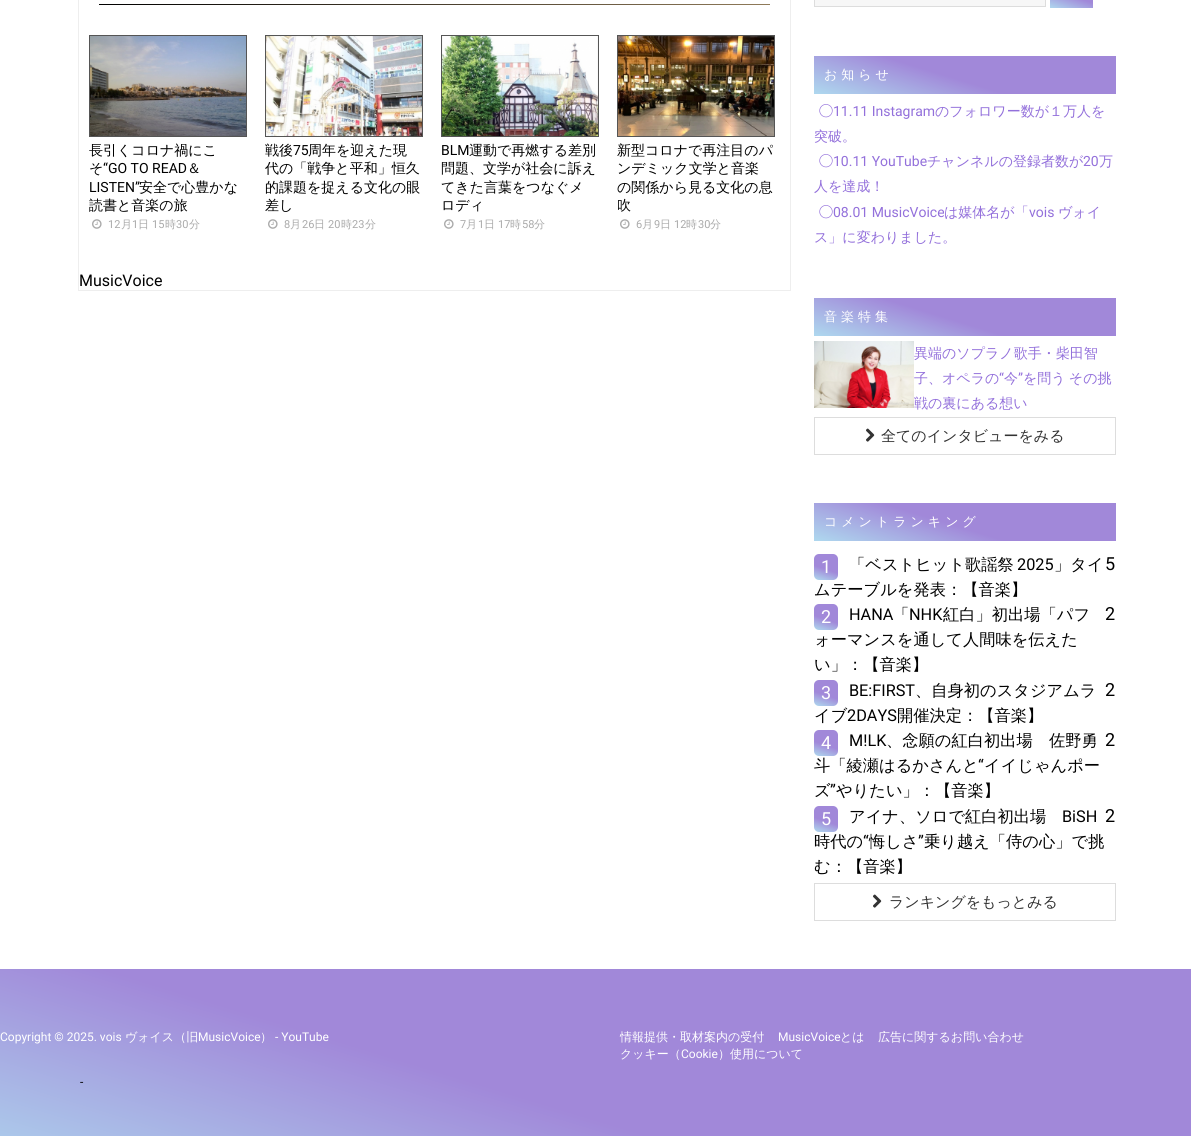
import math
import cairo

surface = cairo.ImageSurface(cairo.Format.RGB24, 1191, 1136)
ctx = cairo.Context(surface)
options = cairo.FontOptions()
options.set_hint_metrics(cairo.HintMetrics.OFF)
options.set_hint_style(cairo.HintStyle.NONE)
ctx.set_font_options(options)
ctx.set_miter_limit(4)


def ink(r, g, b):
    ctx.set_source_rgb(r / 255, g / 255, b / 255)


def write(x, y, s, family, size, color, bold=False, italic=False):
    ctx.select_font_face(family, cairo.FontSlant.ITALIC if italic else cairo.FontSlant.NORMAL, cairo.FontWeight.BOLD if bold else cairo.FontWeight.NORMAL)
    ctx.set_font_size(size)
    ink(*color)
    ctx.move_to(x, y)
    ctx.show_text(s)


def write_spaced(x, y, s, letter, word):
    ctx.move_to(x, y)
    for ch in s:
        ctx.show_text(ch)
        ctx.rel_move_to(letter + word * (ch == ' '), 0)


def round_path(x, y, w, h, r):
    ctx.new_sub_path()
    for i, (u, v) in enumerate([(x + w - r, y + h - r), (x + r, y + h - r), (x + r, y + r), (x + w - r, y + r)]):
        ctx.arc(u, v, r, i * math.pi / 2, (i + 1) * math.pi / 2)
    ctx.close_path()


def paste(path, x, y, w, h):
    ctx.save()
    ctx.set_source_surface(cairo.ImageSurface.create_from_png(path), x, y)
    ctx.rectangle(x, y, w, h)
    ctx.fill()
    ctx.restore()


s1 = dict(family="WenQuanYi Zen Hei Medium", size=14, color=(0, 0, 0))
s2 = dict(family="Roboto", size=14, color=(0, 0, 0))
s3 = dict(family="Roboto", size=11, color=(170, 170, 170))
s4 = dict(family="WenQuanYi Zen Hei Medium", size=11, color=(170, 170, 170))
s5 = dict(family="Roboto", size=16, color=(0, 0, 0))
s6 = dict(family="IPAPGothic", size=14, color=(147, 112, 219))
s7 = dict(family="Roboto", size=14, color=(147, 112, 219))
s8 = dict(family="WenQuanYi Zen Hei Medium", size=14, color=(147, 112, 219))
s9 = dict(family="WenQuanYi Zen Hei Medium", size=15, color=(51, 51, 51))
s10 = dict(family="WenQuanYi Zen Hei Medium", size=16.25, color=(0, 0, 0))
s11 = dict(family="Roboto", size=16.25, color=(0, 0, 0))
s12 = dict(family="Roboto", size=18, color=(0, 0, 0))
s13 = dict(family="Roboto", size=18, color=(255, 255, 255))
s14 = dict(family="Roboto", size=12, color=(255, 255, 255))
s15 = dict(family="WenQuanYi Zen Hei Medium", size=12, color=(255, 255, 255))
s16 = dict(family="Roboto", size=12, color=(0, 0, 0))

ink(255, 255, 255)
ctx.paint()
ctx.rectangle(78.5, -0.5, 712, 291)
ink(238, 238, 238)
ctx.set_line_width(1)
ctx.stroke()
paste("pic1.png", 99, 4, 671, 1)
ctx.rectangle(89.5, 35.5, 157, 101)
ink(85, 85, 85)
ctx.stroke()
paste("pic2.png", 90, 36, 156, 100)
write(89, 155, "長引くコロナ禍にこ", **s1)
write(89, 173, "そ", **s1)
write(103, 173, "“GO TO READ", **s2)
write(187, 173, "＆", **s1)
write(89, 192, "LISTEN”", **s2)
write(139, 192, "安全で心豊かな", **s1)
write(89, 210, "読書と音楽の旅", **s1)
paste("pic3.png", 92, 219, 10, 10)
write(108, 228, "12", **s3)
write(121, 228, "月", **s4)
write(132, 228, "1", **s3)
write(138, 228, "日", **s4)
write(152, 228, "15", **s3)
write(165, 228, "時", **s4)
write(176, 228, "30", **s3)
write(189, 228, "分", **s4)
ctx.rectangle(265.5, 35.5, 157, 101)
ink(85, 85, 85)
ctx.stroke()
paste("pic4.png", 266, 36, 156, 100)
write(265, 155, "戦後", **s1)
write(293, 155, "75", **s2)
write(308, 155, "周年を迎えた現", **s1)
write(265, 173, "代の「戦争と平和」恒久", **s1)
write(265, 192, "的課題を捉える文化の眼", **s1)
write(265, 210, "差し", **s1)
paste("pic3.png", 268, 219, 10, 10)
write(284, 228, "8", **s3)
write(290, 228, "月", **s4)
write(302, 228, "26", **s3)
write(314, 228, "日", **s4)
write(328, 228, "20", **s3)
write(341, 228, "時", **s4)
write(352, 228, "23", **s3)
write(365, 228, "分", **s4)
ctx.rectangle(441.5, 35.5, 157, 101)
ink(85, 85, 85)
ctx.stroke()
paste("pic5.png", 442, 36, 156, 100)
write(441, 155, "BLM", **s2)
write(469, 155, "運動で再燃する差別", **s1)
write(441, 173, "問題、文学が社会に訴え", **s1)
write(441, 192, "てきた言葉をつなぐメ", **s1)
write(441, 210, "ロディ", **s1)
paste("pic3.png", 444, 219, 10, 10)
write(460, 228, "7", **s3)
write(466, 228, "月", **s4)
write(478, 228, "1", **s3)
write(484, 228, "日", **s4)
write(498, 228, "17", **s3)
write(510, 228, "時", **s4)
write(522, 228, "58", **s3)
write(534, 228, "分", **s4)
ctx.rectangle(617.5, 35.5, 157, 101)
ink(85, 85, 85)
ctx.stroke()
paste("pic6.png", 618, 36, 156, 100)
write(617, 155, "新型コロナで再注目のパ", **s1)
write(617, 173, "ンデミック文学と音楽", **s1)
write(617, 192, "の関係から見る文化の息", **s1)
write(617, 210, "吹", **s1)
paste("pic3.png", 620, 219, 10, 10)
write(636, 228, "6", **s3)
write(642, 228, "月", **s4)
write(654, 228, "9", **s3)
write(660, 228, "日", **s4)
write(674, 228, "12", **s3)
write(686, 228, "時", **s4)
write(698, 228, "30", **s3)
write(710, 228, "分", **s4)
write(79, 286, "MusicVoice", **s5)
ink(247, 247, 247)
ctx.rectangle(814.5, -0.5, 231, 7)
ctx.fill_preserve()
ink(221, 221, 221)
ctx.stroke()
gradient = cairo.LinearGradient(1065, 13, 1078, -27)
gradient.add_color_stop_rgba(0.01, 0.682, 0.839, 0.933, 1)
gradient.add_color_stop_rgba(0.43, 0.631, 0.533, 0.851, 1)
ctx.set_source(gradient)
ctx.rectangle(1050, 0, 43, 8)
ctx.fill()
gradient = cairo.LinearGradient(956, 137, 994, 13)
gradient.add_color_stop_rgba(0.01, 0.682, 0.839, 0.933, 1)
gradient.add_color_stop_rgba(0.43, 0.631, 0.533, 0.851, 1)
ctx.set_source(gradient)
ctx.rectangle(814, 56, 302, 38)
ctx.fill()
ctx.select_font_face("WenQuanYi Zen Hei Medium")
ctx.set_font_size(13)
ink(255, 255, 255)
write_spaced(824, 79, "お知らせ", 4, 0)
write(819, 116, "◯", **s6)
write(833, 116, "11.11 Instagram", **s7)
write(935, 116, "のフォロワー数が１万人を", **s8)
write(814, 141, "突破。", **s8)
write(819, 166, "◯", **s6)
write(833, 166, "10.11 YouTube", **s7)
write(927, 166, "チャンネルの登録者数が", **s8)
write(1083, 166, "20", **s7)
write(1099, 166, "万", **s8)
write(814, 191, "人を達成！", **s8)
write(819, 217, "◯", **s6)
write(833, 217, "08.01 MusicVoice", **s7)
write(944, 217, "は媒体名が「", **s8)
write(1029, 217, "vois", **s7)
write(1058, 217, "ヴォイ", **s8)
write(814, 242, "ス」に変わりました。", **s8)
gradient = cairo.LinearGradient(956, 379, 994, 255)
gradient.add_color_stop_rgba(0.01, 0.682, 0.839, 0.933, 1)
gradient.add_color_stop_rgba(0.43, 0.631, 0.533, 0.851, 1)
ctx.set_source(gradient)
ctx.rectangle(814, 298, 302, 38)
ctx.fill()
ctx.set_font_size(13)
ink(255, 255, 255)
write_spaced(824, 321, "音楽特集", 4, 0)
paste("pic7.png", 814, 341, 100, 67)
write(914, 358, "異端のソプラノ歌手・柴田智", **s8)
write(914, 383, "子、オペラの", **s8)
write(999, 383, "“", **s7)
write(1004, 383, "今", **s8)
write(1018, 383, "”", **s7)
ctx.select_font_face("WenQuanYi Zen Hei Medium")
write_spaced(1023, 383, "を問う その挑", 0, -1)
write(914, 408, "戦の裏にある想い", **s8)
ctx.rectangle(814.5, 417.5, 301, 37)
ink(221, 221, 221)
ctx.stroke()
paste("pic8.png", 866, 428, 9, 14)
write(881, 441, "全てのインタビューをみる", **s9)
gradient = cairo.LinearGradient(956, 584, 994, 460)
gradient.add_color_stop_rgba(0.01, 0.682, 0.839, 0.933, 1)
gradient.add_color_stop_rgba(0.43, 0.631, 0.533, 0.851, 1)
ctx.set_source(gradient)
ctx.rectangle(814, 503, 302, 38)
ctx.fill()
ctx.set_font_size(13)
ink(255, 255, 255)
write_spaced(824, 526, "コメントランキング", 4, 0)
write(849, 570, "「ベストヒット歌謡祭", **s10)
write(1017, 570, "2025", **s11)
write(1054, 570, "」タイ", **s10)
write(814, 595, "ムテーブルを発表：【音楽】", **s10)
write(1105, 570, "5", **s12)
gradient = cairo.LinearGradient(821, 582, 831, 552)
gradient.add_color_stop_rgba(0.01, 0.682, 0.839, 0.933, 1)
gradient.add_color_stop_rgba(0.43, 0.631, 0.533, 0.851, 1)
ctx.set_source(gradient)
round_path(814, 554, 24, 26, 5)
ctx.fill()
write(821, 573, "1", **s13)
write(849, 620, "HANA", **s11)
write(893, 620, "「", **s10)
write(909, 620, "NHK", **s11)
write(943, 620, "紅白」初出場「パフ", **s10)
write(814, 645, "ォーマンスを通して人間味を伝えた", **s10)
write(814, 670, "い」：【音楽】", **s10)
write(1105, 620, "2", **s12)
gradient = cairo.LinearGradient(821, 632, 831, 602)
gradient.add_color_stop_rgba(0.01, 0.682, 0.839, 0.933, 1)
gradient.add_color_stop_rgba(0.43, 0.631, 0.533, 0.851, 1)
ctx.set_source(gradient)
round_path(814, 604, 24, 26, 5)
ctx.fill()
write(821, 623, "2", **s13)
write(849, 696, "BE:FIRST", **s11)
write(915, 696, "、自身初のスタジアムラ", **s10)
write(814, 721, "イブ", **s10)
write(847, 721, "2DAYS", **s11)
write(897, 721, "開催決定：【音楽】", **s10)
write(1105, 696, "2", **s12)
gradient = cairo.LinearGradient(821, 708, 831, 678)
gradient.add_color_stop_rgba(0.01, 0.682, 0.839, 0.933, 1)
gradient.add_color_stop_rgba(0.43, 0.631, 0.533, 0.851, 1)
ctx.set_source(gradient)
round_path(814, 680, 24, 26, 5)
ctx.fill()
write(821, 699, "3", **s13)
write(849, 746, "M!LK", **s11)
write(886, 746, "、念願の紅白初出場　佐野勇", **s10)
write(814, 771, "斗「綾瀬はるかさんと", **s10)
write(978, 771, "“", **s11)
write(984, 771, "イイじゃんポー", **s10)
write(814, 796, "ズ", **s10)
write(830, 796, "”", **s11)
write(836, 796, "やりたい」：【音楽】", **s10)
write(1105, 746, "2", **s12)
gradient = cairo.LinearGradient(821, 758, 831, 728)
gradient.add_color_stop_rgba(0.01, 0.682, 0.839, 0.933, 1)
gradient.add_color_stop_rgba(0.43, 0.631, 0.533, 0.851, 1)
ctx.set_source(gradient)
round_path(814, 730, 24, 26, 5)
ctx.fill()
write(821, 749, "4", **s13)
write(849, 822, "アイナ、ソロで紅白初出場", **s10)
write(1062, 822, "BiSH", **s11)
write(814, 847, "時代の", **s10)
write(863, 847, "“", **s11)
write(869, 847, "悔しさ", **s10)
write(918, 847, "”", **s11)
write(924, 847, "乗り越え「侍の心」で挑", **s10)
write(814, 872, "む：【音楽】", **s10)
write(1105, 822, "2", **s12)
gradient = cairo.LinearGradient(821, 834, 831, 804)
gradient.add_color_stop_rgba(0.01, 0.682, 0.839, 0.933, 1)
gradient.add_color_stop_rgba(0.43, 0.631, 0.533, 0.851, 1)
ctx.set_source(gradient)
round_path(814, 806, 24, 26, 5)
ctx.fill()
write(821, 825, "5", **s13)
ctx.rectangle(814.5, 883.5, 301, 37)
ink(221, 221, 221)
ctx.stroke()
paste("pic8.png", 873, 894, 9, 14)
write(889, 907, "ランキングをもっとみる", **s9)
gradient = cairo.LinearGradient(514, 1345, 677, 812)
gradient.add_color_stop_rgba(0.01, 0.682, 0.839, 0.933, 1)
gradient.add_color_stop_rgba(0.43, 0.631, 0.533, 0.851, 1)
ctx.set_source(gradient)
ctx.rectangle(0, 969, 1191, 167)
ctx.fill()
write(0, 1041, "Copyright © 2025. vois", **s14)
write(125, 1041, "ヴォイス（旧", **s15)
write(198, 1041, "MusicVoice", **s14)
write(260, 1041, "）", **s15)
write(275, 1041, "- YouTube", **s14)
write(620, 1041, "情報提供・取材案内の受付", **s15)
write(778, 1041, "MusicVoice", **s14)
write(840, 1041, "とは", **s15)
write(878, 1041, "広告に関するお問い合わせ", **s15)
write(620, 1058, "クッキー（", **s15)
write(681, 1058, "Cookie", **s14)
write(718, 1058, "）使用について", **s15)
write(80, 1086, "-", **s16)
surface.write_to_png("screenshot.png")
